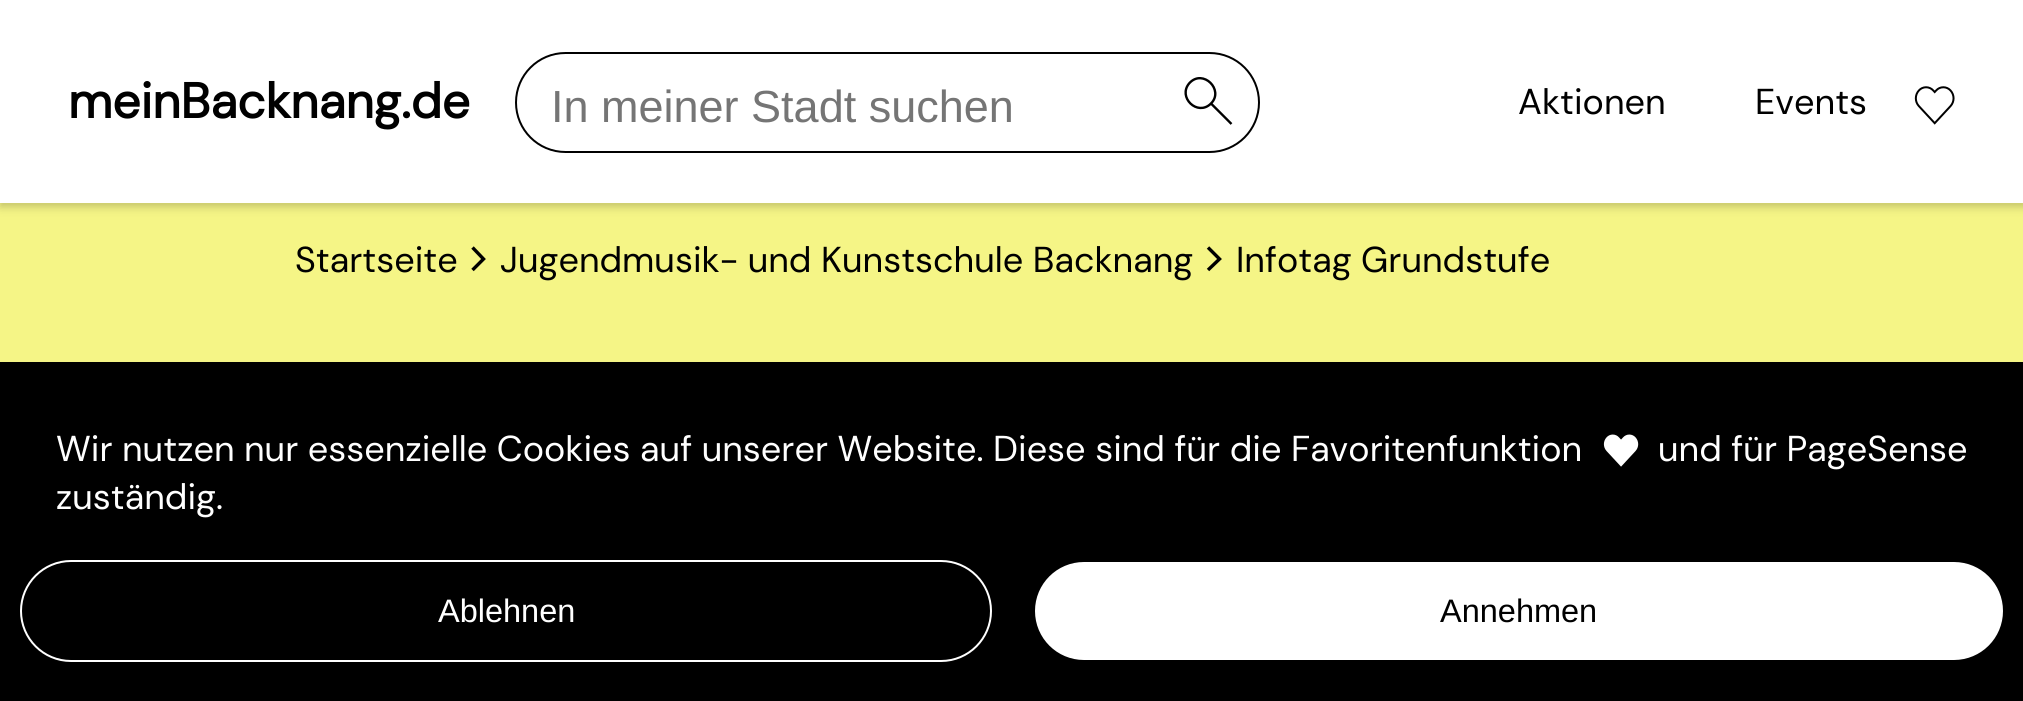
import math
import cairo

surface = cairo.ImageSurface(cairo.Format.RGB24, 2023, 701)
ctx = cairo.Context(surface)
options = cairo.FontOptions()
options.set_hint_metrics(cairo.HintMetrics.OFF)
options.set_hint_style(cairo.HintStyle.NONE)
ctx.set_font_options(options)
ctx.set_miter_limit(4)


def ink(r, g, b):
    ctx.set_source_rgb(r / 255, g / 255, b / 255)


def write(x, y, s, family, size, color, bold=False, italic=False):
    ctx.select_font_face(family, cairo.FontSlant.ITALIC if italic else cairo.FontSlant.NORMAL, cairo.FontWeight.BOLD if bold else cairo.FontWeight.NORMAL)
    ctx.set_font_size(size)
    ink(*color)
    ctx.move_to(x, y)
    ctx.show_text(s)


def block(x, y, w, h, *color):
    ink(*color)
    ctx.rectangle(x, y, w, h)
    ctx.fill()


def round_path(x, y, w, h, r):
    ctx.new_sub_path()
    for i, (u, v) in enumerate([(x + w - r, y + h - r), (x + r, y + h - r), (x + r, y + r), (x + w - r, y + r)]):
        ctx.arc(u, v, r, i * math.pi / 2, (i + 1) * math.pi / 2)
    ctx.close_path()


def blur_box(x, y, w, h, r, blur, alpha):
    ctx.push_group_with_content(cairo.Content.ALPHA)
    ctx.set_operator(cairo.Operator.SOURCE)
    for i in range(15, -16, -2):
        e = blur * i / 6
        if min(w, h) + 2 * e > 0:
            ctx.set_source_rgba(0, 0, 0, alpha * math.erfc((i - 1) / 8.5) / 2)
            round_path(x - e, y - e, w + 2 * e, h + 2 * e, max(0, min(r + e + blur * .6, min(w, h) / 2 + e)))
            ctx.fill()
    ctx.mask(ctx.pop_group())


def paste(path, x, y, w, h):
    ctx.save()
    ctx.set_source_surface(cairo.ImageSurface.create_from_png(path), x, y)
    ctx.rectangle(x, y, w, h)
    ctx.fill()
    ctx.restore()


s1 = dict(family="DM Sans", size=49.5, color=(0, 0, 0), bold=True)
s2 = dict(family="Liberation Sans", size=45, color=(117, 117, 117))
s3 = dict(family="DM Sans", size=36, color=(0, 0, 0))
s4 = dict(family="DM Sans", size=36, color=(255, 255, 255))
s5 = dict(family="Liberation Sans", size=32.5, color=(255, 255, 255))
s6 = dict(family="Liberation Sans", size=32.5, color=(0, 0, 0))

ink(245, 245, 134)
ctx.paint()
ink(0, 0, 0)
blur_box(0, 5, 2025, 202, 0, 4.5, 0.2)
block(0, 0, 2023, 203, 255, 255, 255)
write(68, 118, "meinBacknang.de", **s1)
round_path(516, 53, 743, 99, 49.5)
ctx.stroke()
write(551, 122, "In meiner Stadt suchen", **s2)
ctx.new_path()
ctx.move_to(1211, 103.5)
ctx.curve_to(1197.5, 117, 1177, 97, 1189.5, 83)
ctx.curve_to(1203, 68.5, 1224.5, 90, 1211, 103.5)
ctx.line_to(1231.5, 124)
ctx.close_path()
ink(0, 0, 0)
ctx.set_line_width(2.4)
ctx.stroke()
write(1518, 114, "Aktionen", **s3)
write(1755, 114, "Events", **s3)
paste("pic1.png", 1914, 86, 41, 39)
write(295, 272, "Startseite", **s3)
ctx.new_path()
ctx.move_to(472.5, 247.5)
ctx.line_to(483.5, 259)
ctx.line_to(472.5, 270)
ctx.set_line_width(3.4)
ctx.stroke()
write(500, 272, "Jugendmusik- und Kunstschule Backnang", **s3)
ctx.new_path()
ctx.move_to(1208, 247.5)
ctx.line_to(1219.5, 259)
ctx.line_to(1208, 270)
ctx.stroke()
write(1236, 272, "Infotag Grundstufe", **s3)
block(0, 362, 2023, 339, 0, 0, 0)
write(56, 461, "Wir nutzen nur essenzielle Cookies auf unserer Website. Diese sind für die Favoritenfunktion", **s4)
paste("pic2.png", 1603, 434, 36, 33)
write(1658, 461, "und für PageSense", **s4)
write(56, 509, "zuständig.", **s4)
round_path(21, 561, 970, 100, 50)
ctx.set_line_width(2)
ctx.stroke()
write(438, 622, "Ablehnen", **s5)
round_path(1034, 561, 970, 100, 50)
ctx.fill_preserve()
ink(0, 0, 0)
ctx.stroke()
write(1440, 622, "Annehmen", **s6)
surface.write_to_png("screenshot.png")
